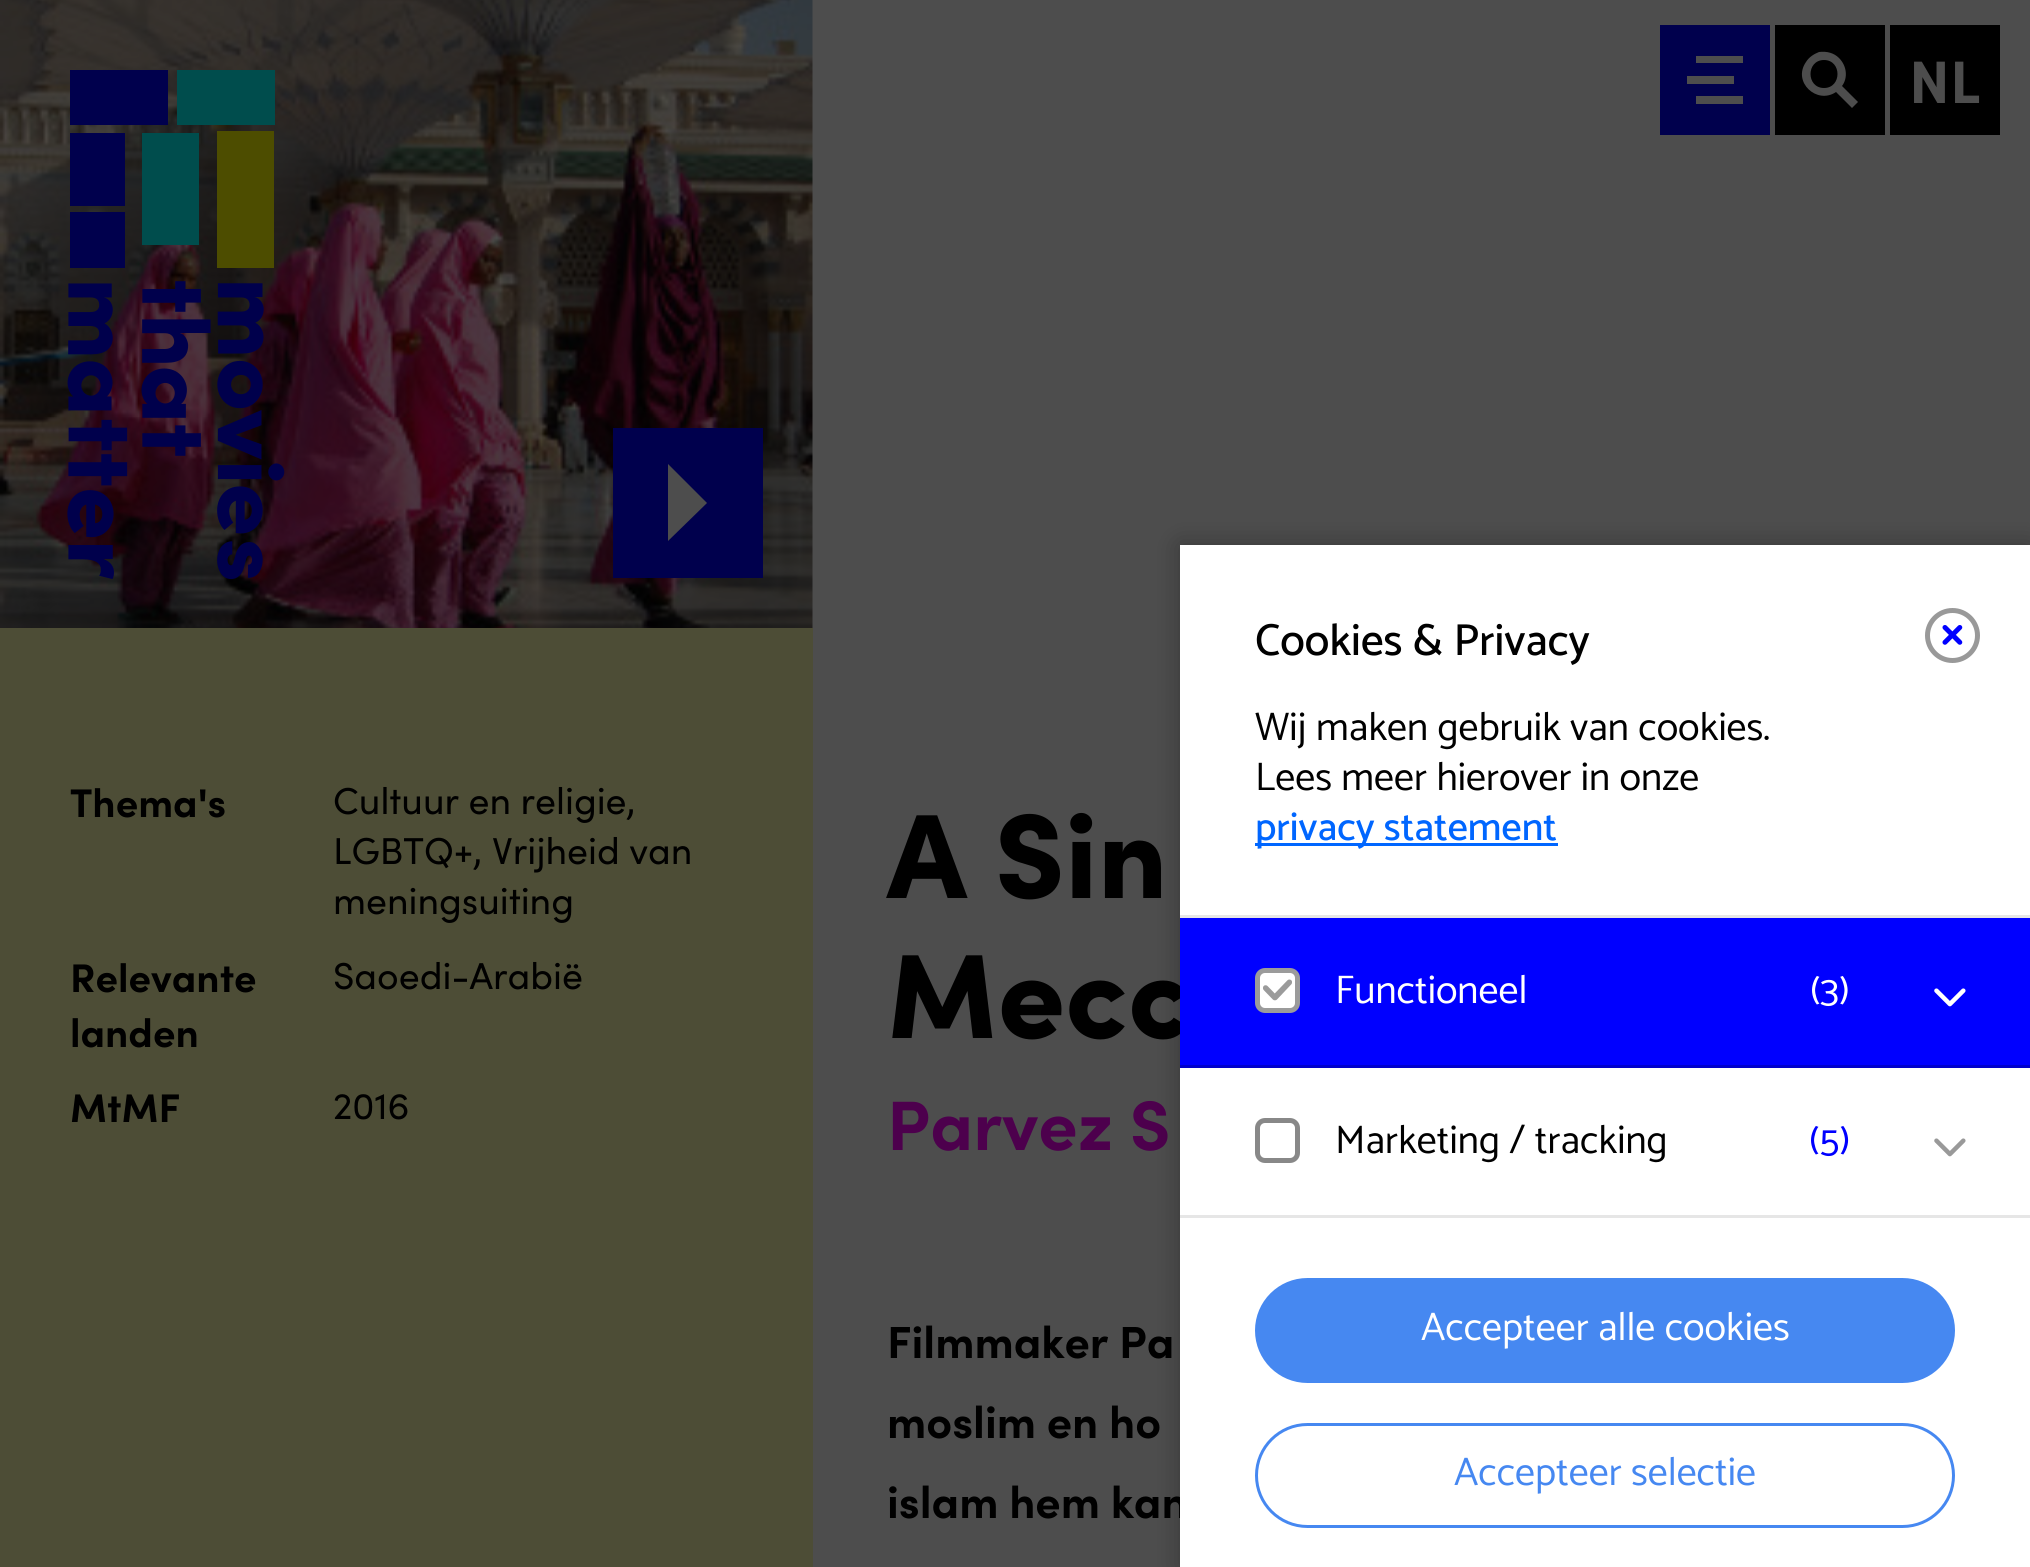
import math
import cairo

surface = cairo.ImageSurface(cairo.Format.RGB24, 2030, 1567)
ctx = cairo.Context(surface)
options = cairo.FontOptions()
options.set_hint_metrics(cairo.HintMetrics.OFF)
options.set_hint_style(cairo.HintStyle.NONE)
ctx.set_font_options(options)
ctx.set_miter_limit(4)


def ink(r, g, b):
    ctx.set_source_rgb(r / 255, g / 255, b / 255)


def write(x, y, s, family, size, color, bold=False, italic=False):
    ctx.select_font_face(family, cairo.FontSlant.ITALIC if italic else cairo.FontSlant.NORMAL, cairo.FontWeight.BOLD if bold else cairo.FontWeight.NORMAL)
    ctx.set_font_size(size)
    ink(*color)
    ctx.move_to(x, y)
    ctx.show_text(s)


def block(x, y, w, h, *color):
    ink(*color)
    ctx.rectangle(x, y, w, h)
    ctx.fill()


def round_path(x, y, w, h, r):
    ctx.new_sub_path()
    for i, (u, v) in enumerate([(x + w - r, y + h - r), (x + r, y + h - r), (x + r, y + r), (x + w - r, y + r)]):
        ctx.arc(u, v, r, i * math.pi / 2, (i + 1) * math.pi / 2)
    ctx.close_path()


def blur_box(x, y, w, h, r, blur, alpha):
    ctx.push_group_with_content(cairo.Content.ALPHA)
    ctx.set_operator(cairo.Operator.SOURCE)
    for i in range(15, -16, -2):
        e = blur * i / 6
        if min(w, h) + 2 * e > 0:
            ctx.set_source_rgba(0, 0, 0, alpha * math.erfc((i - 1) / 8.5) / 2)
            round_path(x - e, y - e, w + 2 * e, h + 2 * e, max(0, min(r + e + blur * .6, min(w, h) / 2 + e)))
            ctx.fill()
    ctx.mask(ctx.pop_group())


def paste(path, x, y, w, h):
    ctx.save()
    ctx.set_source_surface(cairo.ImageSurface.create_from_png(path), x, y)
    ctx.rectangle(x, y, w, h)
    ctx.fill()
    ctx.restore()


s1 = dict(family="Sofia", size=60, color=(77, 77, 77), bold=True)
s2 = dict(family="Sofia", size=40, color=(0, 0, 0), bold=True)
s3 = dict(family="Sofia", size=37.5, color=(0, 0, 0))
s4 = dict(family="Sofia Black", size=120, color=(0, 0, 0))
s5 = dict(family="Sofia", size=70, color=(77, 0, 77), bold=True)
s6 = dict(family="Sofia", size=45, color=(0, 0, 0), bold=True)
s7 = dict(family="Catamaran Medium", size=45, color=(0, 0, 0))
s8 = dict(family="Catamaran", size=40, color=(0, 0, 0))
s9 = dict(family="Catamaran Medium", size=40, color=(0, 102, 255))
s10 = dict(family="Catamaran", size=40, color=(255, 255, 255))
s11 = dict(family="Catamaran", size=40, color=(0, 0, 255))
s12 = dict(family="Catamaran", size=40, color=(70, 136, 241))

ink(77, 77, 77)
ctx.paint()
paste("pic2.png", 0, 0, 813, 628)
block(142, 133, 57, 112, 0, 77, 77)
block(217, 131, 57, 137, 77, 77, 0)
block(177, 70, 98, 55, 0, 77, 77)
block(70, 70, 98, 55, 0, 0, 77)
block(70, 133, 55, 73, 0, 0, 77)
block(70, 212, 55, 56, 0, 0, 77)
paste("pic1.png", 67, 281, 218, 299)
block(1660, 25, 110, 110, 0, 0, 77)
ink(77, 77, 77)
ctx.new_path()
ctx.move_to(1743, 56)
ctx.line_to(1743, 63)
ctx.line_to(1696, 63)
ctx.line_to(1696, 56)
ctx.close_path()
ctx.move_to(1734, 76)
ctx.line_to(1687, 76)
ctx.line_to(1687, 84)
ctx.line_to(1734, 84)
ctx.close_path()
ctx.move_to(1696, 104)
ctx.line_to(1743, 104)
ctx.line_to(1743, 96)
ctx.line_to(1696, 96)
ctx.close_path()
ctx.fill()
ctx.rectangle(1780, 30, 100, 100)
ink(0, 0, 0)
ctx.set_line_width(10)
ctx.stroke()
block(1785, 35, 90, 90, 0, 0, 0)
ink(77, 77, 77)
ctx.new_path()
ctx.move_to(1858, 102)
ctx.line_to(1842, 86)
ctx.curve_to(1848, 78, 1847, 66, 1839, 58)
ctx.curve_to(1834, 53, 1827, 51, 1819, 52)
ctx.curve_to(1814, 54, 1809, 57, 1806, 62)
ctx.curve_to(1792, 82, 1817, 105, 1836, 92)
ctx.line_to(1852, 108)
ctx.close_path()
ctx.move_to(1824, 88)
ctx.curve_to(1806, 88, 1806, 60, 1824, 60)
ctx.curve_to(1842, 60, 1842, 88, 1824, 88)
ctx.close_path()
ctx.fill()
ctx.rectangle(1895, 30, 100, 100)
ink(0, 0, 0)
ctx.stroke()
block(1900, 35, 90, 90, 0, 0, 0)
write(1909, 103, "NL", **s1)
block(613, 428, 150, 150, 0, 0, 77)
ink(77, 77, 77)
ctx.new_path()
ctx.move_to(668, 464)
ctx.line_to(707, 503)
ctx.line_to(668, 541)
ctx.close_path()
ctx.fill()
block(0, 628, 813, 939, 77, 77, 54)
write(70, 817, "Thema's", **s2)
write(333, 814, "Cultuur en religie,", **s3)
write(333, 864, "LGBTQ+, Vrijheid van", **s3)
write(333, 914, "meningsuiting", **s3)
write(70, 992, "Relevante", **s2)
write(70, 1047, "landen", **s2)
write(333, 989, "Saoedi-Arabië", **s3)
write(70, 1122, "MtMF", **s2)
write(333, 1119, "2016", **s3)
write(887, 898, "A Sin", **s4)
write(887, 1038, "Mecc", **s4)
write(887, 1150, "Parvez S", **s5)
write(887, 1358, "Filmmaker Pa", **s6)
write(887, 1438, "moslim en ho", **s6)
write(887, 1518, "islam hem kan", **s6)
ink(0, 0, 0)
blur_box(1180, 545, 850, 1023, 0, 12.5, 0.3)
block(1180, 545, 850, 1022, 255, 255, 255)
block(1180, 915, 850, 3, 230, 230, 230)
write(1255, 655, "Cookies & Privacy", **s7)
ctx.new_path()
ctx.arc(1952.5, 635.5, 25, 0, 2 * math.pi)
ink(153, 153, 153)
ctx.set_line_width(5)
ctx.stroke()
paste("pic3.png", 1942, 625, 21, 20)
write(1255, 740, "Wij maken gebruik van cookies.", **s8)
write(1255, 790, "Lees meer hierover in onze", **s8)
block(1255, 843, 303, 3, 0, 102, 255)
write(1255, 840, "privacy statement", **s9)
block(1180, 918, 850, 147, 0, 0, 255)
block(1180, 1065, 850, 3, 0, 0, 204)
ink(255, 255, 255)
round_path(1257.5, 970.5, 40, 40, 7.5)
ctx.fill_preserve()
ink(155, 155, 155)
ctx.stroke()
paste("pic4.png", 1263, 979, 29, 22)
write(1335, 1003, "Functioneel", **s10)
write(1810, 1003, "(3)", **s10)
paste("pic5.png", 1934, 988, 32, 19)
block(1180, 1215, 850, 3, 230, 230, 230)
round_path(1257.5, 1120.5, 40, 40, 7.5)
ink(136, 136, 136)
ctx.stroke()
write(1335, 1153, "Marketing / tracking", **s8)
write(1809, 1153, "(5)", **s11)
paste("pic6.png", 1934, 1138, 32, 19)
ink(70, 136, 241)
round_path(1256.5, 1279.5, 697, 102, 51)
ctx.fill_preserve()
ctx.set_line_width(3)
ctx.stroke()
write(1421, 1340, "Accepteer alle cookies", **s10)
round_path(1256.5, 1424.5, 697, 102, 51)
ink(70, 136, 241)
ctx.stroke()
write(1454, 1485, "Accepteer selectie", **s12)
surface.write_to_png("screenshot.png")
